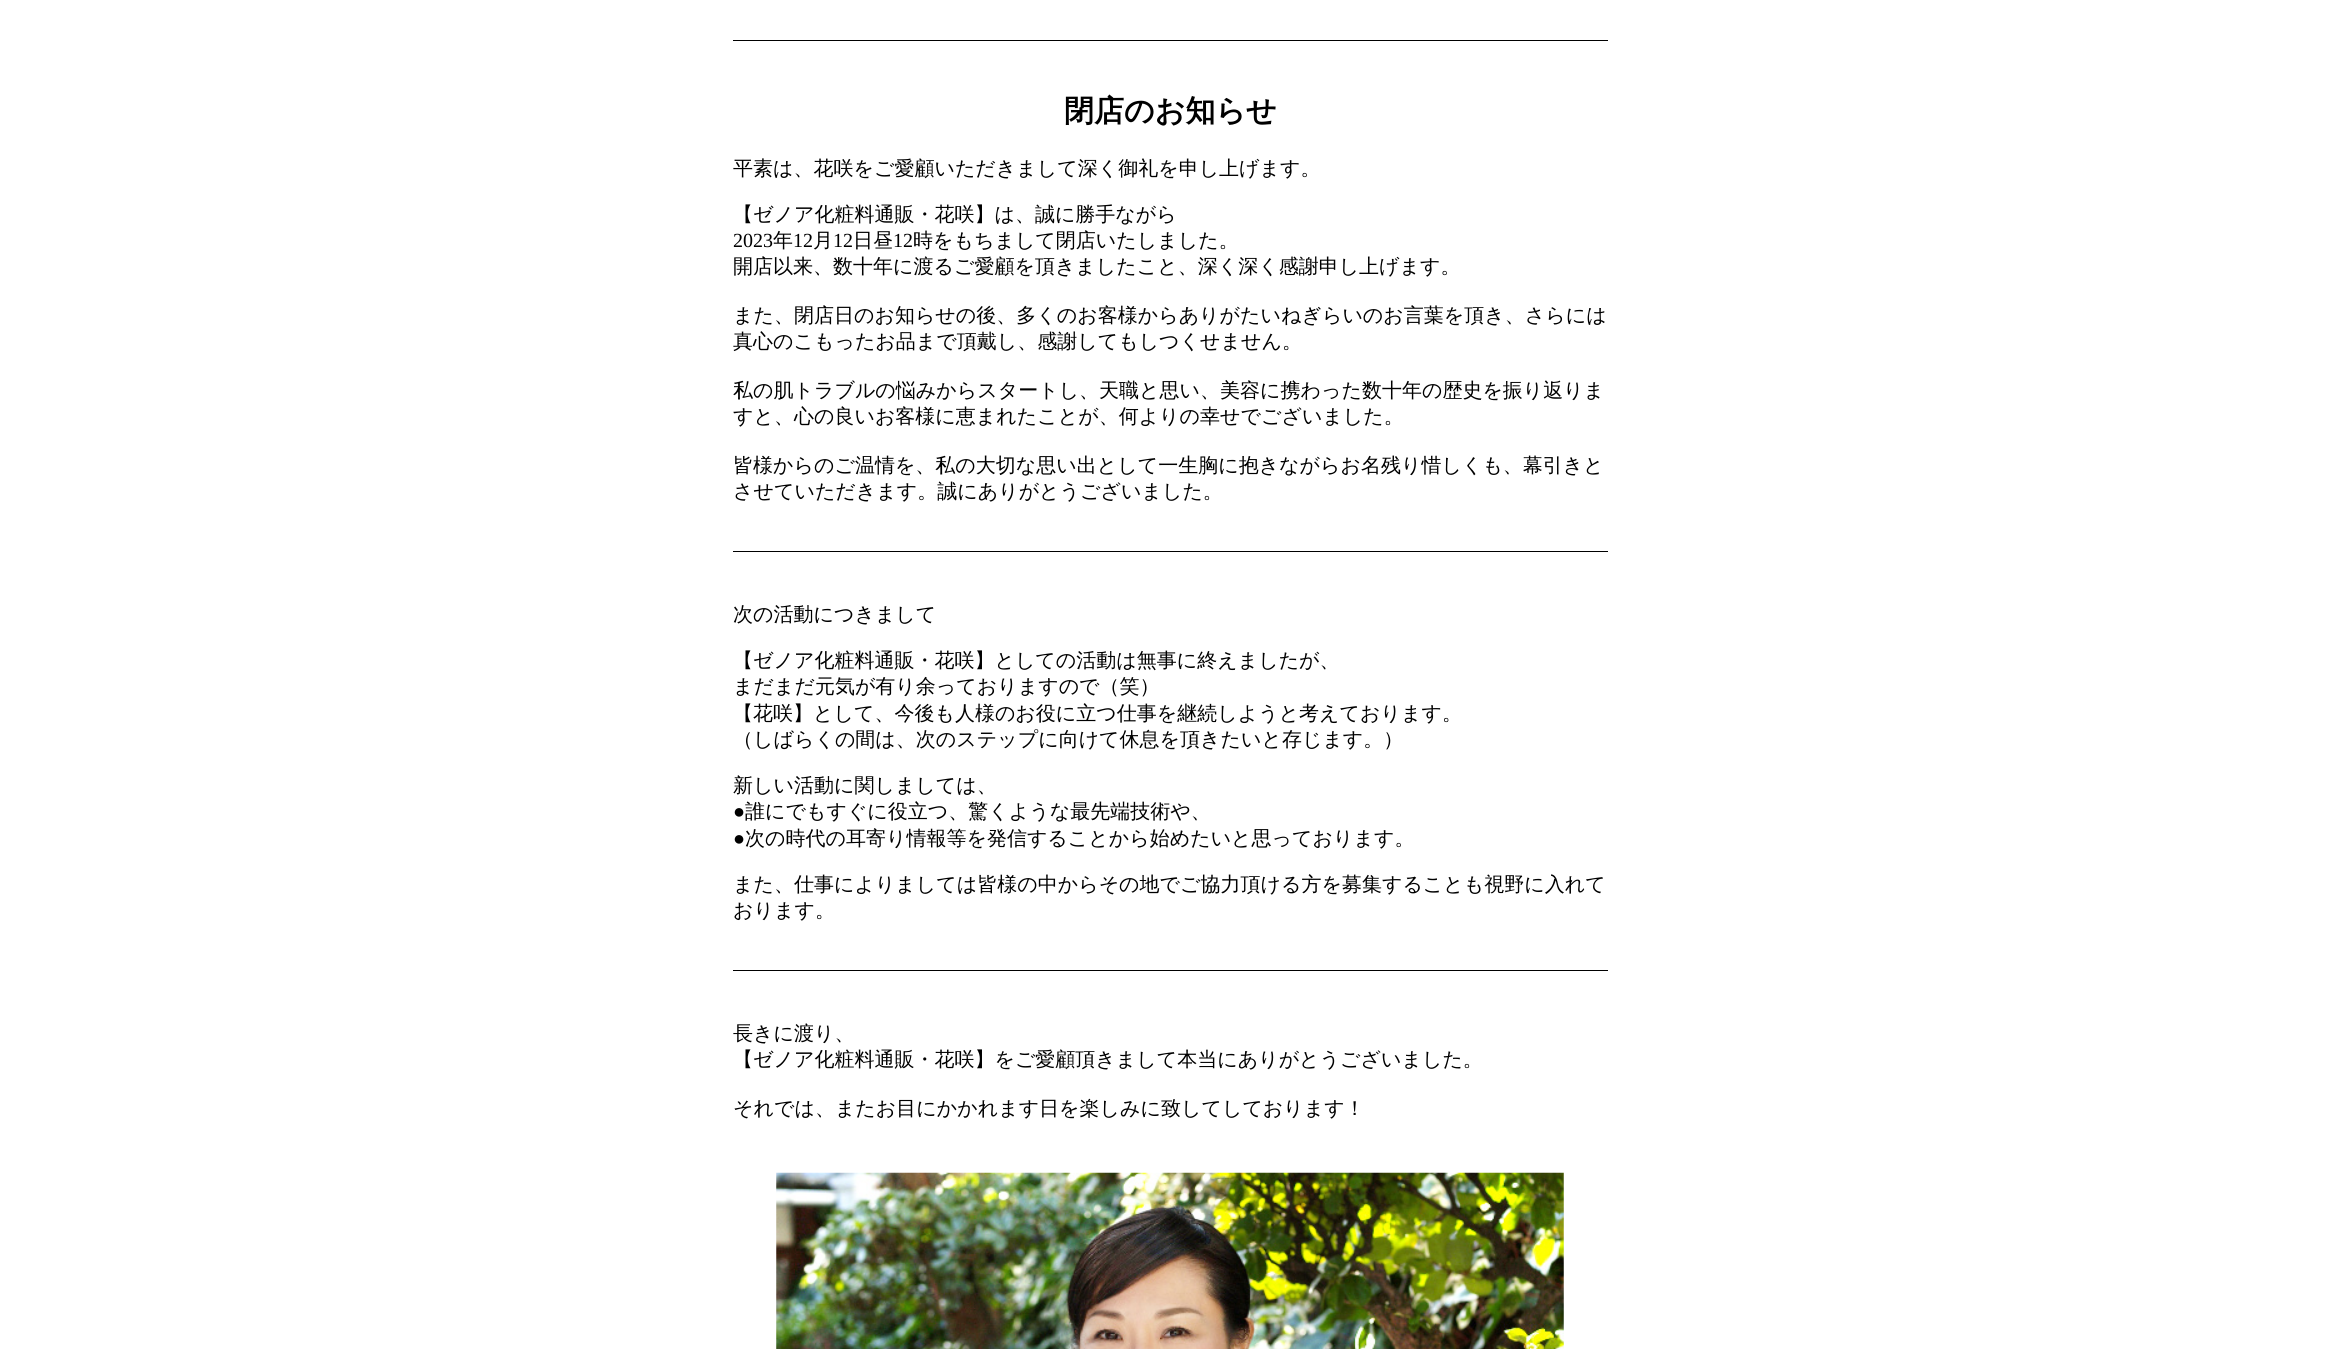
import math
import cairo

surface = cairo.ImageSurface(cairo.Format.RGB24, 2339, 1349)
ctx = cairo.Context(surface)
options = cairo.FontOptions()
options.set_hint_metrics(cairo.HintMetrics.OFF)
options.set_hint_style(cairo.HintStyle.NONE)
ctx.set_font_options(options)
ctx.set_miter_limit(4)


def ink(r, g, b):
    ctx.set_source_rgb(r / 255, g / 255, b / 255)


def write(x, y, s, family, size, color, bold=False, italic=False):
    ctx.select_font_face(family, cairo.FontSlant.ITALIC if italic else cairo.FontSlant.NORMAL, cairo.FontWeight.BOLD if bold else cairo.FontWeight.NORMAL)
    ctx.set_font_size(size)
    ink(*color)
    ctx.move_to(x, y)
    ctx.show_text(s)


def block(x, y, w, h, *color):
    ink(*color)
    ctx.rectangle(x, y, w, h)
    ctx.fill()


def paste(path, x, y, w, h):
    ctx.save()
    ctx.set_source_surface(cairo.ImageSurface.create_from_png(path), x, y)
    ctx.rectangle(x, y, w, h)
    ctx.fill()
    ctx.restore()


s1 = dict(family="WenQuanYi Zen Hei", size=30, color=(0, 0, 0), bold=True)
s2 = dict(family="WenQuanYi Zen Hei Medium", size=20, color=(0, 0, 0))
s3 = dict(family="Liberation Serif", size=20, color=(0, 0, 0))

ink(255, 255, 255)
ctx.paint()
block(733, 40, 875, 1, 0, 0, 0)
block(733, 551, 875, 1, 0, 0, 0)
write(1064, 121, "閉店のお知らせ", **s1)
write(733, 175, "平素は、花咲をご愛顧いただきまして深く御礼を申し上げます。", **s2)
write(733, 221, "【ゼノア化粧料通販・花咲】は、誠に勝手ながら", **s2)
write(733, 247, "2023", **s3)
write(773, 247, "年", **s2)
write(793, 247, "12", **s3)
write(813, 247, "月", **s2)
write(833, 247, "12", **s3)
write(853, 247, "日昼", **s2)
write(893, 247, "12", **s3)
write(913, 247, "時をもちまして閉店いたしました。", **s2)
write(733, 273, "開店以来、数十年に渡るご愛顧を頂きましたこと、深く深く感謝申し上げます。", **s2)
write(733, 322, "また、閉店日のお知らせの後、多くのお客様からありがたいねぎらいのお言葉を頂き、さらには", **s2)
write(733, 348, "真心のこもったお品まで頂戴し、感謝してもしつくせません。", **s2)
write(733, 397, "私の肌トラブルの悩みからスタートし、天職と思い、美容に携わった数十年の歴史を振り返りま", **s2)
write(733, 423, "すと、心の良いお客様に恵まれたことが、何よりの幸せでございました。", **s2)
write(733, 472, "皆様からのご温情を、私の大切な思い出として一生胸に抱きながらお名残り惜しくも、幕引きと", **s2)
write(733, 498, "させていただきます。誠にありがとうございました。", **s2)
block(733, 970, 875, 1, 0, 0, 0)
write(733, 621, "次の活動につきまして", **s2)
write(733, 667, "【ゼノア化粧料通販・花咲】としての活動は無事に終えましたが、", **s2)
write(733, 693, "まだまだ元気が有り余っておりますので（笑）", **s2)
write(733, 720, "【花咲】として、今後も人様のお役に立つ仕事を継続しようと考えております。", **s2)
write(733, 746, "（しばらくの間は、次のステップに向けて休息を頂きたいと存じます。）", **s2)
write(733, 792, "新しい活動に関しましては、", **s2)
write(733, 818, "●", **s3)
write(745, 818, "誰にでもすぐに役立つ、驚くような最先端技術や、", **s2)
write(733, 845, "●", **s3)
write(745, 845, "次の時代の耳寄り情報等を発信することから始めたいと思っております。", **s2)
write(733, 891, "また、仕事によりましては皆様の中からその地でご協力頂ける方を募集することも視野に入れて", **s2)
write(733, 917, "おります。", **s2)
write(733, 1040, "長きに渡り、", **s2)
write(733, 1066, "【ゼノア化粧料通販・花咲】をご愛顧頂きまして本当にありがとうございました。", **s2)
write(733, 1115, "それでは、またお目にかかれます日を楽しみに致してしております！", **s2)
paste("pic1.png", 776, 1172, 788, 177)
surface.write_to_png("screenshot.png")
